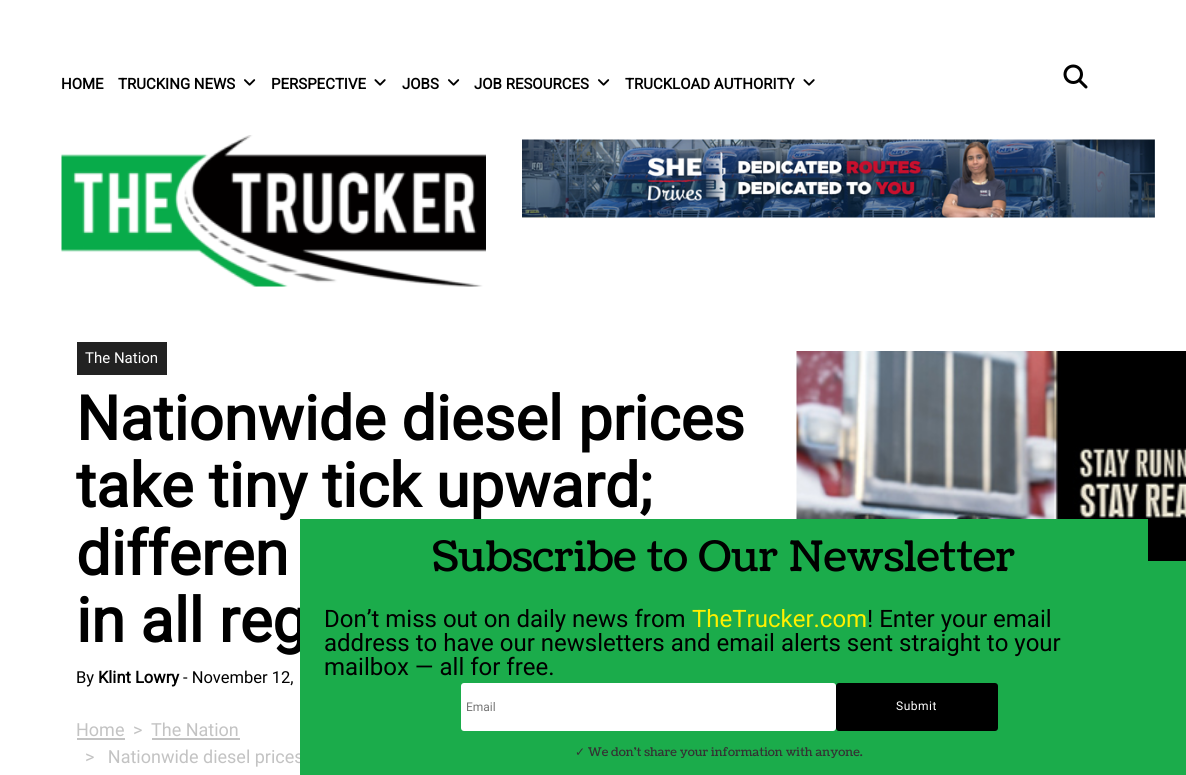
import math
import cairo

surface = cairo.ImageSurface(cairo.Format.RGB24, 1186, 775)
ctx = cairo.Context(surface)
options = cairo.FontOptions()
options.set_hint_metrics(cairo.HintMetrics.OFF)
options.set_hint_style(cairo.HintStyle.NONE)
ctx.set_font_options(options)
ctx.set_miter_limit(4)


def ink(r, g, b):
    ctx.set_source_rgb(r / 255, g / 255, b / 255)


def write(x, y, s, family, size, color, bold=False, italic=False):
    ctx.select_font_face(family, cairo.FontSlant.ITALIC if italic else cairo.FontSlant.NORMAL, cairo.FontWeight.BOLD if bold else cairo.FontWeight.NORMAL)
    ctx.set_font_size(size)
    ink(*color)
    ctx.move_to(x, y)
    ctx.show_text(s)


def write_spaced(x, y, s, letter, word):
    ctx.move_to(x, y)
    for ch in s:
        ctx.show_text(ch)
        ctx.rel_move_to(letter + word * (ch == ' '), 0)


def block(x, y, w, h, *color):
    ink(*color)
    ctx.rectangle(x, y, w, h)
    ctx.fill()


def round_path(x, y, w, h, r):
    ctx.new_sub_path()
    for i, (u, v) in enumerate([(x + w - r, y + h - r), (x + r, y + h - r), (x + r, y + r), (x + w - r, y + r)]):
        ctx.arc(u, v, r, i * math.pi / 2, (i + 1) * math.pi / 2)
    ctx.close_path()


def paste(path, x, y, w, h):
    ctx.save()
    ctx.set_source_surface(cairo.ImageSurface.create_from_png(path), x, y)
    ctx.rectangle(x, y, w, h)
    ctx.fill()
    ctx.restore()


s1 = dict(family="Roboto", size=15, color=(0, 0, 0), bold=True)
s2 = dict(family="Roboto", size=15, color=(255, 255, 255))
s3 = dict(family="Roboto", size=61.5, color=(0, 0, 0), bold=True)
s4 = dict(family="Roboto", size=16.5, color=(0, 0, 0))
s5 = dict(family="Roboto", size=16.5, color=(0, 0, 0), bold=True)
s6 = dict(family="Roboto", size=18, color=(195, 195, 195))
s7 = dict(family="Coustard", size=42, color=(0, 0, 0))
s8 = dict(family="Roboto", size=24, color=(0, 0, 0))
s9 = dict(family="Roboto", size=24, color=(255, 240, 0))
s10 = dict(family="Roboto", size=12, color=(117, 117, 117))
s11 = dict(family="DejaVu Sans", size=12, color=(51, 51, 51))
s12 = dict(family="Coustard", size=12, color=(51, 51, 51))

ink(255, 255, 255)
ctx.paint()
write(61, 89, "HOME", **s1)
write(118, 89, "TRUCKING NEWS", **s1)
paste("pic1.png", 244, 79, 12, 7)
write(271, 89, "PERSPECTIVE", **s1)
paste("pic2.png", 374, 79, 12, 7)
write(402, 89, "JOBS", **s1)
paste("pic1.png", 448, 79, 12, 7)
write(474, 89, "JOB RESOURCES", **s1)
paste("pic1.png", 598, 79, 12, 7)
write(625, 89, "TRUCKLOAD AUTHORITY", **s1)
paste("pic2.png", 803, 79, 12, 7)
paste("pic3.png", 1063, 64, 25, 25)
paste("pic4.png", 61, 135, 425, 152)
paste("pic5.png", 522, 139, 633, 79)
block(77, 342, 90, 33, 34, 34, 34)
write(85, 363, "The Nation", **s2)
write(76, 440, "Nationwide diesel prices", **s3)
write(76, 507, "take tiny tick upward;", **s3)
write(76, 575, "differen", **s3)
write(76, 642, "in all reg", **s3)
write(76, 683, "By", **s4)
write(98, 683, "Klint Lowry", **s5)
write(183, 683, "- November 12,", **s4)
write(76, 736, "Home", **s6)
block(77, 738, 48, 2, 195, 195, 195)
write(133, 736, ">", **s6)
write(151, 736, "The Nation", **s6)
block(152, 738, 88, 2, 195, 195, 195)
write(85, 763, ">   Nationwide diesel prices", **s6)
paste("pic6.png", 796, 351, 390, 168)
block(300, 519, 886, 256, 27, 172, 75)
write(432, 571, "Subscribe to Our Newsletter", **s7)
block(1148, 519, 38, 42, 0, 0, 0)
write(324, 627, "Don’t miss out on daily news from", **s8)
write(692, 627, "TheTrucker.com", **s9)
write(867, 627, "! Enter your email", **s8)
write(324, 651, "address to have our newsletters and email alerts sent straight to your", **s8)
write(324, 675, "mailbox — all for free.", **s8)
ink(255, 255, 255)
round_path(461, 683, 375, 48, 3)
ctx.fill()
ctx.save()
ctx.rectangle(467, 701, 369, 13)
ctx.clip()
write(466, 711, "Email", **s10)
ctx.restore()
ink(0, 0, 0)
round_path(836, 683, 162, 48, 3)
ctx.fill()
ctx.set_font_size(12)
ink(255, 255, 255)
write_spaced(896, 710, "Submit", 0.5, 0)
write(575, 756, "✓", **s11)
write(588, 756, "We don't share your information with anyone.", **s12)
surface.write_to_png("screenshot.png")
